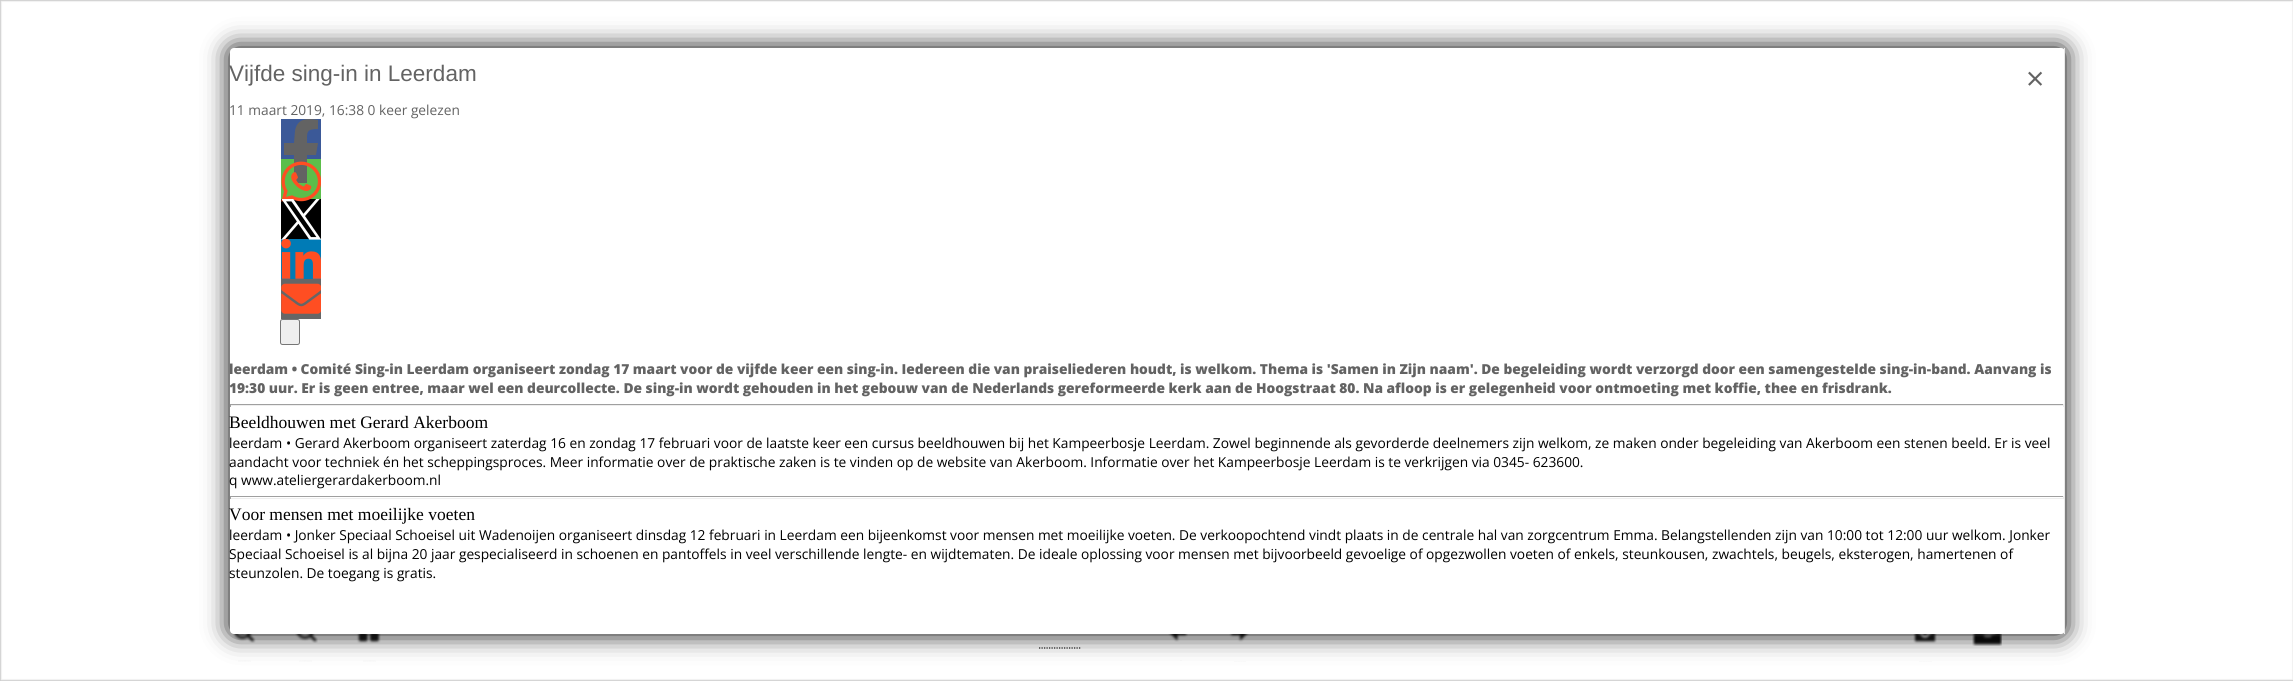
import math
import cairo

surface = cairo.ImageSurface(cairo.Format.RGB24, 2293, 681)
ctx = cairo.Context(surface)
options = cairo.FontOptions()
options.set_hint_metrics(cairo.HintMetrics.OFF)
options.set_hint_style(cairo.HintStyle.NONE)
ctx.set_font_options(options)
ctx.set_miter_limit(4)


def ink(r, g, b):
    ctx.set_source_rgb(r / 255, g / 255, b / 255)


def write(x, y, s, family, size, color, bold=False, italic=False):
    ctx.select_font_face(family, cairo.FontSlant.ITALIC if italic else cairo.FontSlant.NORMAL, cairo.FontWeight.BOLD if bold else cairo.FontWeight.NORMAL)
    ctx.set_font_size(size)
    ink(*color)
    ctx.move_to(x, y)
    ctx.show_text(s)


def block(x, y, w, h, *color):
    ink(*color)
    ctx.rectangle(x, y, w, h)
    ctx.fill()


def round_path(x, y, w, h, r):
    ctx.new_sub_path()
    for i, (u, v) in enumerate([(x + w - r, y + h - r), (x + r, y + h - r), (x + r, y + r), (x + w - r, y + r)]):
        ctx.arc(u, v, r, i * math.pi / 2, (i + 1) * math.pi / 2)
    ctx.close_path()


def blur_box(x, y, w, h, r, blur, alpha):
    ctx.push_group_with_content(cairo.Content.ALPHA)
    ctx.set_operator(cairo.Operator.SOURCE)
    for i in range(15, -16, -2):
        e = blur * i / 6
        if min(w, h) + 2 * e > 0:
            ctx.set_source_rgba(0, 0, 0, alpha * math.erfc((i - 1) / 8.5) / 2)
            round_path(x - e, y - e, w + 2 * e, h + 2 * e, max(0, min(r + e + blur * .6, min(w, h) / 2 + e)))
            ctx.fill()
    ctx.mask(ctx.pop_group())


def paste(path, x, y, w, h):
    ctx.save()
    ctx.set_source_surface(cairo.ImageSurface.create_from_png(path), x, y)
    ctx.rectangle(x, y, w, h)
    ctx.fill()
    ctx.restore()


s1 = dict(family="Liberation Sans", size=22.5, color=(99, 99, 99))
s2 = dict(family="Open Sans", size=13.75, color=(99, 99, 99))
s3 = dict(family="Open Sans ExtraBold", size=13.75, color=(99, 99, 99))
s4 = dict(family="Liberation Serif", size=17.5, color=(0, 0, 0))
s5 = dict(family="Open Sans", size=13.75, color=(0, 0, 0))
s6 = dict(family="Open Sans", size=32, color=(99, 99, 99))

ink(255, 255, 255)
ctx.paint()
ink(50, 50, 50)
blur_box(0, 0, 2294, 681, 0, 1, 1)
ink(255, 255, 255)
blur_box(0, 0, 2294, 681, 0, 1, 1)
paste("pic1.png", 232, 633, 24, 10)
paste("pic2.png", 238, 660, 13, 2)
paste("pic3.png", 295, 634, 23, 9)
paste("pic4.png", 299, 660, 13, 2)
paste("pic5.png", 356, 634, 25, 10)
paste("pic2.png", 363, 660, 13, 2)
ctx.new_path()
ctx.move_to(1039, 648)
ctx.line_to(1081, 648)
ink(29, 29, 29)
ctx.set_line_width(1.2)
ctx.set_dash([1.25, 1.25])
ctx.stroke()
paste("pic6.png", 1168, 634, 20, 8)
block(1180, 660, 2, 1, 251, 251, 251)
paste("pic7.png", 1229, 634, 21, 8)
paste("pic8.png", 1234, 661, 12, 1)
paste("pic9.png", 1913, 634, 24, 10)
paste("pic10.png", 1919, 661, 13, 1)
paste("pic11.png", 1972, 634, 30, 12)
block(1990, 660, 1, 1, 251, 251, 251)
ink(0, 0, 0)
blur_box(230, 48, 1835, 586, 4, 12.5, 1)
ink(255, 255, 255)
round_path(230, 48, 1835, 586, 4)
ctx.fill()
block(2064, 48, 1, 586, 234, 234, 234)
write(229, 81, "Vijfde sing-in in Leerdam", **s1)
write(229, 115, "11 maart 2019, 16:38 0 keer gelezen", **s2)
block(281, 119, 40, 40, 59, 89, 152)
block(281, 159, 40, 40, 92, 190, 74)
ink(99, 99, 99)
ctx.new_path()
ctx.move_to(316, 155)
ctx.line_to(318, 143)
ctx.line_to(307, 143)
ctx.curve_to(307, 132, 306, 129, 318, 129)
ctx.line_to(318, 120)
ctx.curve_to(308, 118, 297, 118, 295, 131)
ctx.line_to(294, 143)
ctx.line_to(284, 143)
ctx.line_to(284, 155)
ctx.line_to(294, 155)
ctx.line_to(294, 183)
ctx.line_to(307, 183)
ctx.line_to(307, 155)
ctx.close_path()
ctx.fill()
block(281, 199, 40, 40, 0, 0, 0)
paste("pic12.png", 281, 161, 40, 41)
block(281, 239, 40, 40, 0, 123, 182)
paste("pic13.png", 281, 199, 40, 41)
paste("pic14.png", 281, 239, 40, 40)
block(281, 279, 40, 40, 102, 102, 102)
paste("pic15.png", 281, 283, 40, 31)
ink(239, 239, 239)
round_path(280.5, 319.5, 19, 25, 2)
ctx.fill_preserve()
ink(118, 118, 118)
ctx.set_line_width(1)
ctx.set_dash([])
ctx.stroke()
write(229, 374, "leerdam • Comité Sing-in Leerdam organiseert zondag 17 maart voor de vijfde keer een sing-in. Iedereen die van praiseliederen houdt, is welkom. Thema is 'Samen in Zijn naam'. De begeleiding wordt verzorgd door een samengestelde sing-in-band. Aanvang is", **s3)
write(229, 393, "19:30 uur. Er is geen entree, maar wel een deurcollecte. De sing-in wordt gehouden in het gebouw van de Nederlands gereformeerde kerk aan de Hoogstraat 80. Na afloop is er gelegenheid voor ontmoeting met koffie, thee en frisdrank.", **s3)
block(230, 404, 1834, 1, 159, 159, 159)
block(2063, 404, 1, 3, 238, 238, 238)
block(230, 405, 1834, 1, 238, 238, 238)
block(230, 404, 1, 3, 159, 159, 159)
write(229, 428, "Beeldhouwen met Gerard Akerboom", **s4)
write(229, 448, "leerdam • Gerard Akerboom organiseert zaterdag 16 en zondag 17 februari voor de laatste keer een cursus beeldhouwen bij het Kampeerbosje Leerdam. Zowel beginnende als gevorderde deelnemers zijn welkom, ze maken onder begeleiding van Akerboom een stenen beeld. Er is veel", **s5)
write(229, 467, "aandacht voor techniek én het scheppingsproces. Meer informatie over de praktische zaken is te vinden op de website van Akerboom. Informatie over het Kampeerbosje Leerdam is te verkrijgen via 0345- 623600.", **s5)
write(229, 485, "q www.ateliergerardakerboom.nl", **s5)
block(230, 496, 1834, 1, 159, 159, 159)
block(2063, 496, 1, 3, 238, 238, 238)
block(230, 498, 1834, 1, 238, 238, 238)
block(230, 496, 1, 3, 159, 159, 159)
write(229, 520, "Voor mensen met moeilijke voeten", **s4)
write(229, 540, "leerdam • Jonker Speciaal Schoeisel uit Wadenoijen organiseert dinsdag 12 februari in Leerdam een bijeenkomst voor mensen met moeilijke voeten. De verkoopochtend vindt plaats in de centrale hal van zorgcentrum Emma. Belangstellenden zijn van 10:00 tot 12:00 uur welkom. Jonker", **s5)
write(229, 559, "Speciaal Schoeisel is al bijna 20 jaar gespecialiseerd in schoenen en pantoffels in veel verschillende lengte- en wijdtematen. De ideale oplossing voor mensen met bijvoorbeeld gevoelige of opgezwollen voeten of enkels, steunkousen, zwachtels, beugels, eksterogen, hamertenen of", **s5)
write(229, 578, "steunzolen. De toegang is gratis.", **s5)
write(2026, 90, "×", **s6)
surface.write_to_png("screenshot.png")
